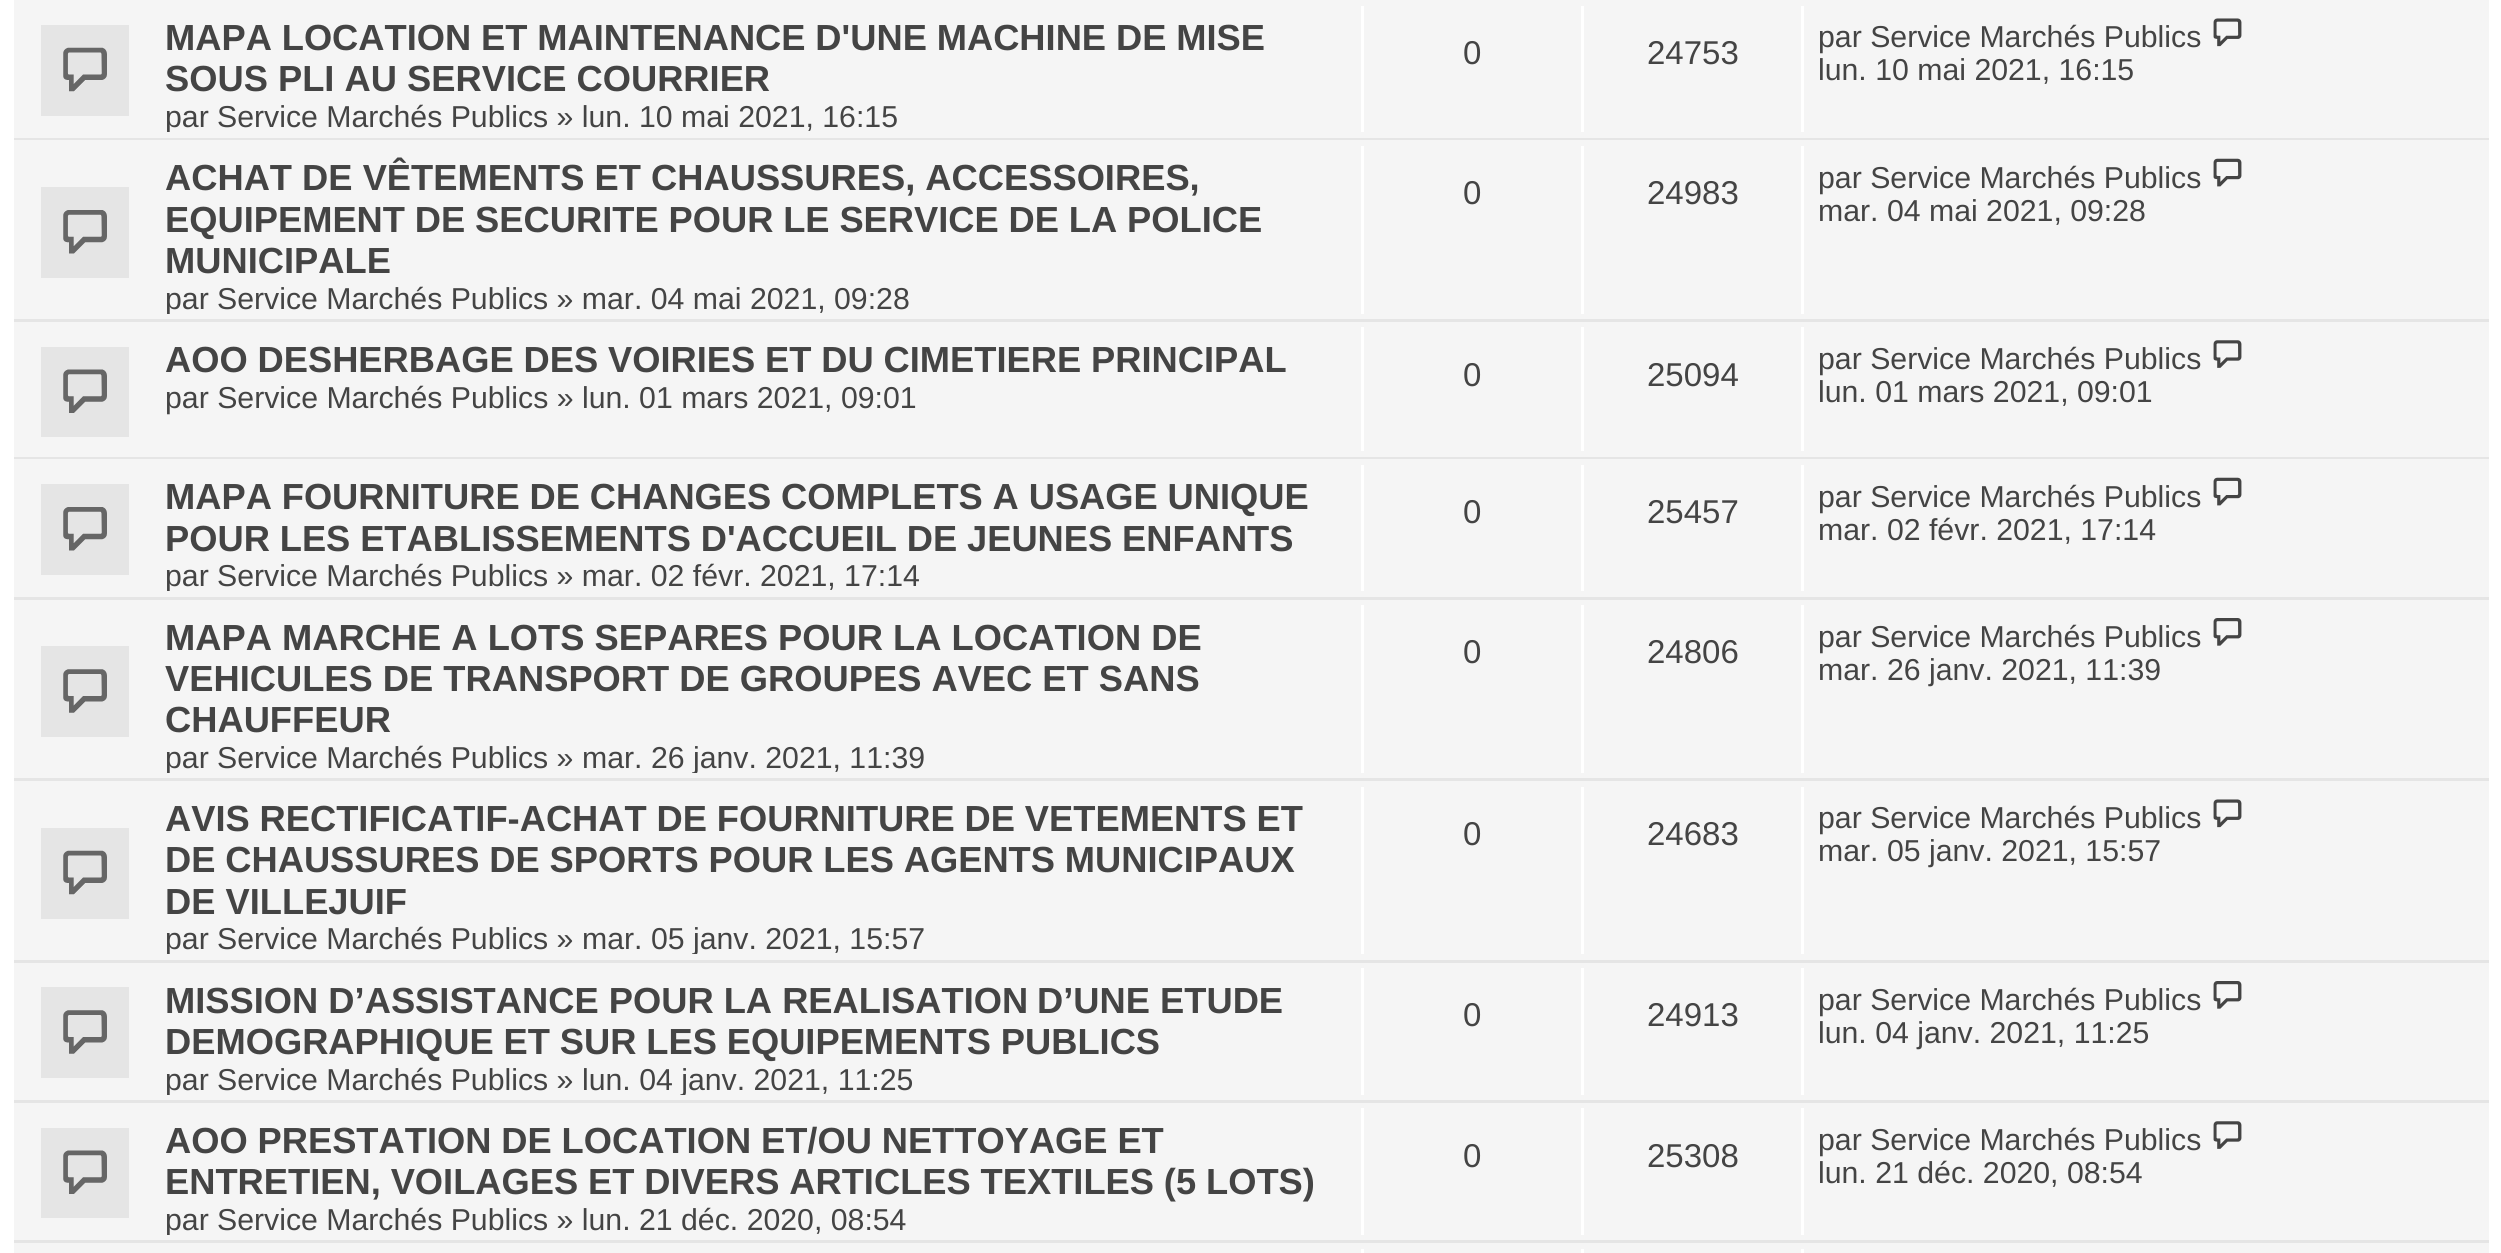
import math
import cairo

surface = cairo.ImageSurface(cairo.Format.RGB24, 2501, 1253)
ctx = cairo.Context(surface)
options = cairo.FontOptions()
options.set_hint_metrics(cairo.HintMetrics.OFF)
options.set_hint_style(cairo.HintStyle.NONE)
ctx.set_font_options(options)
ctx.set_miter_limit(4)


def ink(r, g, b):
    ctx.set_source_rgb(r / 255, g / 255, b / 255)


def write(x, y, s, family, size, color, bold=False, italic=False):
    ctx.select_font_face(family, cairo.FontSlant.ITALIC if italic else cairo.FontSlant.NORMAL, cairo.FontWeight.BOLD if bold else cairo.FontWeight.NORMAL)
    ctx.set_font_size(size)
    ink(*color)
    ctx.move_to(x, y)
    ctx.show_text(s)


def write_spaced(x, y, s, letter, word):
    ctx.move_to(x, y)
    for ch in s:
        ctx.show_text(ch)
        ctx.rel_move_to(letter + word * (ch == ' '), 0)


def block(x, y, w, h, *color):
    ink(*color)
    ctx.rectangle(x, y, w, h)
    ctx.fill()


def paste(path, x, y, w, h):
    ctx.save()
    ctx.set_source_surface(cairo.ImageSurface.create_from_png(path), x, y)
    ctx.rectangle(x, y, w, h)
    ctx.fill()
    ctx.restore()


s1 = dict(family="Liberation Sans", size=36.3, color=(68, 68, 68), bold=True)
s2 = dict(family="Liberation Sans", size=30.25, color=(68, 68, 68))
s3 = dict(family="Liberation Sans", size=33, color=(68, 68, 68))

ink(255, 255, 255)
ctx.paint()
block(14, 0, 2475, 138, 245, 245, 245)
block(14, 138, 2475, 2, 229, 229, 229)
block(41, 25, 88, 91, 229, 229, 229)
paste("pic1.png", 63, 47, 44, 45)
ctx.select_font_face("Liberation Sans", cairo.FontSlant.NORMAL, cairo.FontWeight.BOLD)
ctx.set_font_size(36.3)
ink(68, 68, 68)
write_spaced(165, 50, "MAPA LOCATION ET MAINTENANCE D'UNE MACHINE DE MISE", 0, -0.25)
write(165, 91, "SOUS PLI AU SERVICE COURRIER", **s1)
ctx.save()
ctx.rectangle(14, 6, 2475, 126)
ctx.clip()
write(165, 127, "par", **s2)
ctx.restore()
write(217, 127, "Service Marchés Publics » lun. 10 mai 2021, 16:15", **s2)
block(1361, 6, 3, 126, 255, 255, 255)
write(1463, 64, "0", **s3)
block(1581, 6, 3, 126, 255, 255, 255)
write(1647, 64, "24753", **s3)
block(1801, 6, 3, 126, 255, 255, 255)
write(1818, 47, "par Service Marchés Publics", **s2)
paste("pic2.png", 2213, 18, 29, 29)
write(1818, 80, "lun. 10 mai 2021, 16:15", **s2)
block(14, 140, 2475, 179, 245, 245, 245)
block(14, 319, 2475, 3, 229, 229, 229)
block(41, 187, 88, 91, 229, 229, 229)
paste("pic3.png", 63, 210, 44, 44)
write(165, 190, "ACHAT DE VÊTEMENTS ET CHAUSSURES, ACCESSOIRES,", **s1)
write_spaced(165, 232, "EQUIPEMENT DE SECURITE POUR LE SERVICE DE LA POLICE", 0, -0.25)
write(165, 273, "MUNICIPALE", **s1)
ctx.save()
ctx.rectangle(14, 146, 2475, 168)
ctx.clip()
write(165, 309, "par", **s2)
ctx.restore()
write(217, 309, "Service Marchés Publics » mar. 04 mai 2021, 09:28", **s2)
block(1361, 146, 3, 168, 255, 255, 255)
write(1463, 204, "0", **s3)
block(1581, 146, 3, 168, 255, 255, 255)
write(1647, 204, "24983", **s3)
block(1801, 146, 3, 168, 255, 255, 255)
write(1818, 188, "par Service Marchés Publics", **s2)
paste("pic4.png", 2213, 158, 29, 29)
write(1818, 221, "mar. 04 mai 2021, 09:28", **s2)
block(14, 322, 2475, 135, 245, 245, 245)
block(14, 457, 2475, 2, 229, 229, 229)
block(41, 347, 88, 90, 229, 229, 229)
paste("pic5.png", 63, 369, 44, 44)
ctx.select_font_face("Liberation Sans", cairo.FontSlant.NORMAL, cairo.FontWeight.BOLD)
ctx.set_font_size(36.3)
ink(68, 68, 68)
write_spaced(165, 372, "AOO DESHERBAGE DES VOIRIES ET DU CIMETIERE PRINCIPAL", 0, -0.25)
write(165, 408, "par Service Marchés Publics » lun. 01 mars 2021, 09:01", **s2)
block(1361, 327, 3, 124, 255, 255, 255)
write(1463, 386, "0", **s3)
block(1581, 327, 3, 124, 255, 255, 255)
write(1647, 386, "25094", **s3)
block(1801, 327, 3, 124, 255, 255, 255)
write(1818, 369, "par Service Marchés Publics", **s2)
paste("pic6.png", 2213, 340, 29, 28)
write(1818, 402, "lun. 01 mars 2021, 09:01", **s2)
block(14, 459, 2475, 138, 245, 245, 245)
block(14, 597, 2475, 3, 229, 229, 229)
block(41, 484, 88, 91, 229, 229, 229)
paste("pic3.png", 63, 507, 44, 44)
ctx.select_font_face("Liberation Sans", cairo.FontSlant.NORMAL, cairo.FontWeight.BOLD)
ctx.set_font_size(36.3)
ink(68, 68, 68)
write_spaced(165, 509, "MAPA FOURNITURE DE CHANGES COMPLETS A USAGE UNIQUE", 0, -0.25)
write_spaced(165, 551, "POUR LES ETABLISSEMENTS D'ACCUEIL DE JEUNES ENFANTS", 0, -0.25)
ctx.save()
ctx.rectangle(14, 465, 2475, 126)
ctx.clip()
write(165, 586, "par", **s2)
ctx.restore()
write(217, 586, "Service Marchés Publics » mar. 02 févr. 2021, 17:14", **s2)
block(1361, 465, 3, 126, 255, 255, 255)
write(1463, 523, "0", **s3)
block(1581, 465, 3, 126, 255, 255, 255)
write(1647, 523, "25457", **s3)
block(1801, 465, 3, 126, 255, 255, 255)
write(1818, 507, "par Service Marchés Publics", **s2)
paste("pic4.png", 2213, 477, 29, 29)
write(1818, 540, "mar. 02 févr. 2021, 17:14", **s2)
block(14, 600, 2475, 178, 245, 245, 245)
block(14, 778, 2475, 3, 229, 229, 229)
block(41, 646, 88, 91, 229, 229, 229)
paste("pic7.png", 63, 669, 44, 44)
write(165, 650, "MAPA MARCHE A LOTS SEPARES POUR LA LOCATION DE", **s1)
write(165, 691, "VEHICULES DE TRANSPORT DE GROUPES AVEC ET SANS", **s1)
write(165, 732, "CHAUFFEUR", **s1)
ctx.save()
ctx.rectangle(14, 605, 2475, 168)
ctx.clip()
write(165, 768, "par", **s2)
ctx.restore()
write(217, 768, "Service Marchés Publics »", **s2)
ctx.save()
ctx.rectangle(14, 605, 2475, 168)
ctx.clip()
write(582, 768, "mar. 26 janv. 2021, 11:39", **s2)
ctx.restore()
block(1361, 605, 3, 168, 255, 255, 255)
write(1463, 663, "0", **s3)
block(1581, 605, 3, 168, 255, 255, 255)
write(1647, 663, "24806", **s3)
block(1801, 605, 3, 168, 255, 255, 255)
write(1818, 647, "par Service Marchés Publics", **s2)
paste("pic8.png", 2213, 618, 29, 28)
write(1818, 680, "mar. 26 janv. 2021, 11:39", **s2)
block(14, 781, 2475, 179, 245, 245, 245)
block(14, 960, 2475, 3, 229, 229, 229)
block(41, 828, 88, 91, 229, 229, 229)
paste("pic1.png", 63, 850, 44, 45)
ctx.select_font_face("Liberation Sans", cairo.FontSlant.NORMAL, cairo.FontWeight.BOLD)
ctx.set_font_size(36.3)
ink(68, 68, 68)
write_spaced(165, 831, "AVIS RECTIFICATIF-ACHAT DE FOURNITURE DE VETEMENTS ET", 0, -0.25)
write_spaced(165, 872, "DE CHAUSSURES DE SPORTS POUR LES AGENTS MUNICIPAUX", 0, -0.25)
write(165, 914, "DE VILLEJUIF", **s1)
ctx.save()
ctx.rectangle(14, 787, 2475, 167)
ctx.clip()
write(165, 949, "par", **s2)
ctx.restore()
write(217, 949, "Service Marchés Publics »", **s2)
ctx.save()
ctx.rectangle(14, 787, 2475, 167)
ctx.clip()
write(582, 949, "mar. 05 janv. 2021, 15:57", **s2)
ctx.restore()
block(1361, 787, 3, 167, 255, 255, 255)
write(1463, 845, "0", **s3)
block(1581, 787, 3, 167, 255, 255, 255)
write(1647, 845, "24683", **s3)
block(1801, 787, 3, 167, 255, 255, 255)
write(1818, 828, "par Service Marchés Publics", **s2)
paste("pic2.png", 2213, 799, 29, 29)
write(1818, 861, "mar. 05 janv. 2021, 15:57", **s2)
block(14, 963, 2475, 137, 245, 245, 245)
block(14, 1100, 2475, 3, 229, 229, 229)
block(41, 987, 88, 91, 229, 229, 229)
paste("pic9.png", 63, 1010, 44, 44)
write(165, 1013, "MISSION D’ASSISTANCE POUR LA REALISATION", **s1)
write(1037, 1013, "D’UNE ETUDE", **s1)
write_spaced(165, 1054, "DEMOGRAPHIQUE ET SUR LES EQUIPEMENTS PUBLICS", 0, -0.25)
ctx.save()
ctx.rectangle(14, 968, 2475, 127)
ctx.clip()
write(165, 1090, "par", **s2)
ctx.restore()
write(217, 1090, "Service Marchés Publics »", **s2)
ctx.save()
ctx.rectangle(14, 968, 2475, 127)
ctx.clip()
write(582, 1090, "lun. 04 janv. 2021, 11:25", **s2)
ctx.restore()
block(1361, 968, 3, 127, 255, 255, 255)
write(1463, 1026, "0", **s3)
block(1581, 968, 3, 127, 255, 255, 255)
write(1647, 1026, "24913", **s3)
block(1801, 968, 3, 127, 255, 255, 255)
write(1818, 1010, "par Service Marchés Publics", **s2)
paste("pic8.png", 2213, 981, 29, 28)
write(1818, 1043, "lun. 04 janv. 2021, 11:25", **s2)
block(14, 1103, 2475, 137, 245, 245, 245)
block(14, 1240, 2475, 3, 229, 229, 229)
block(41, 1128, 88, 90, 229, 229, 229)
paste("pic5.png", 63, 1150, 44, 44)
ctx.select_font_face("Liberation Sans", cairo.FontSlant.NORMAL, cairo.FontWeight.BOLD)
ctx.set_font_size(36.3)
ink(68, 68, 68)
write_spaced(165, 1153, "AOO PRESTATION DE LOCATION ET/OU NETTOYAGE ET", 0, -0.25)
write_spaced(165, 1194, "ENTRETIEN, VOILAGES ET DIVERS ARTICLES TEXTILES (5 LOTS)", 0, -0.25)
ctx.save()
ctx.rectangle(14, 1108, 2475, 127)
ctx.clip()
write(165, 1230, "par", **s2)
ctx.restore()
write(217, 1230, "Service Marchés Publics » lun. 21 déc. 2020, 08:54", **s2)
block(1361, 1108, 3, 127, 255, 255, 255)
write(1463, 1167, "0", **s3)
block(1581, 1108, 3, 127, 255, 255, 255)
write(1647, 1167, "25308", **s3)
block(1801, 1108, 3, 127, 255, 255, 255)
write(1818, 1150, "par Service Marchés Publics", **s2)
paste("pic6.png", 2213, 1121, 29, 28)
write(1818, 1183, "lun. 21 déc. 2020, 08:54", **s2)
block(14, 1243, 2475, 10, 245, 245, 245)
block(1361, 1249, 3, 4, 255, 255, 255)
block(1581, 1249, 3, 4, 255, 255, 255)
block(1801, 1249, 3, 4, 255, 255, 255)
surface.write_to_png("screenshot.png")
